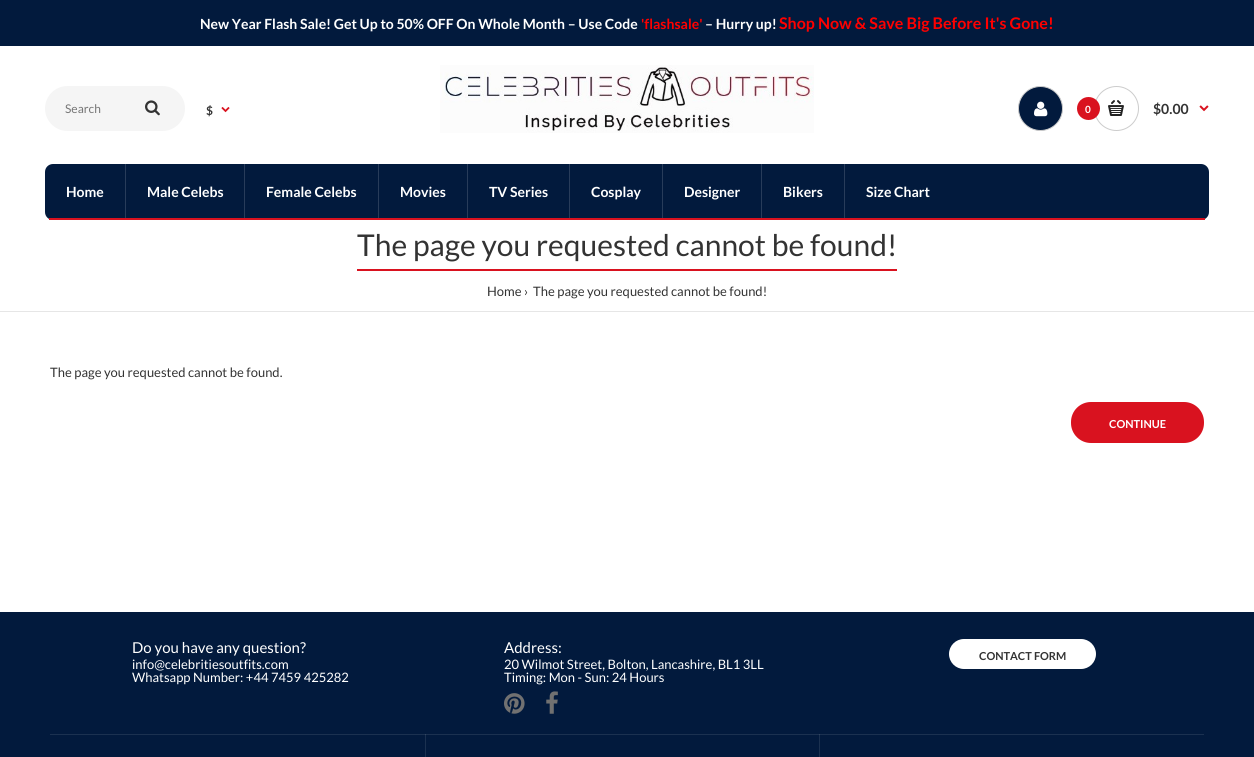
import math
import cairo

surface = cairo.ImageSurface(cairo.Format.RGB24, 1254, 757)
ctx = cairo.Context(surface)
options = cairo.FontOptions()
options.set_hint_metrics(cairo.HintMetrics.OFF)
options.set_hint_style(cairo.HintStyle.NONE)
ctx.set_font_options(options)
ctx.set_miter_limit(4)


def ink(r, g, b):
    ctx.set_source_rgb(r / 255, g / 255, b / 255)


def write(x, y, s, family, size, color, bold=False, italic=False):
    ctx.select_font_face(family, cairo.FontSlant.ITALIC if italic else cairo.FontSlant.NORMAL, cairo.FontWeight.BOLD if bold else cairo.FontWeight.NORMAL)
    ctx.set_font_size(size)
    ink(*color)
    ctx.move_to(x, y)
    ctx.show_text(s)


def block(x, y, w, h, *color):
    ink(*color)
    ctx.rectangle(x, y, w, h)
    ctx.fill()


def round_path(x, y, w, h, r):
    ctx.new_sub_path()
    for i, (u, v) in enumerate([(x + w - r, y + h - r), (x + r, y + h - r), (x + r, y + r), (x + w - r, y + r)]):
        ctx.arc(u, v, r, i * math.pi / 2, (i + 1) * math.pi / 2)
    ctx.close_path()


def paste(path, x, y, w, h):
    ctx.save()
    ctx.set_source_surface(cairo.ImageSurface.create_from_png(path), x, y)
    ctx.rectangle(x, y, w, h)
    ctx.fill()
    ctx.restore()


s1 = dict(family="Lato", size=14, color=(255, 255, 255), bold=True)
s2 = dict(family="Lato", size=14, color=(255, 0, 0), bold=True)
s3 = dict(family="Lato", size=16, color=(255, 0, 0), bold=True)
s4 = dict(family="Lato", size=12, color=(117, 117, 117))
s5 = dict(family="Lato", size=12, color=(51, 51, 51), bold=True)
s6 = dict(family="Lato", size=10, color=(255, 255, 255), bold=True)
s7 = dict(family="Lato", size=14, color=(51, 51, 51), bold=True)
s8 = dict(family="Lato", size=30, color=(51, 51, 51))
s9 = dict(family="Lato", size=13, color=(51, 51, 51))
s10 = dict(family="Lato", size=11, color=(255, 255, 255), bold=True)
s11 = dict(family="Lato", size=15, color=(255, 255, 255))
s12 = dict(family="Lato", size=13, color=(255, 255, 255))
s13 = dict(family="Lato", size=11, color=(51, 51, 51), bold=True)

ink(255, 255, 255)
ctx.paint()
block(0, 0, 1254, 46, 2, 26, 61)
write(200, 29, "New Year Flash Sale! Get Up to 50% OFF On Whole Month – Use Code", **s1)
write(641, 29, "'flashsale'", **s2)
write(705, 29, "– Hurry up!", **s1)
write(779, 29, "Shop Now & Save Big Before It's Gone!", **s3)
ink(245, 245, 245)
round_path(45, 86, 140, 45, 22.5)
ctx.fill()
write(65, 113, "Search", **s4)
paste("pic1.png", 145, 100, 15, 16)
write(206, 115, "$", **s5)
paste("pic2.png", 221, 107, 9, 6)
paste("pic3.png", 440, 65, 374, 68)
ink(2, 26, 61)
ctx.arc(1040.5, 108.5, 22, 0, 2 * math.pi)
ctx.fill_preserve()
ink(204, 204, 204)
ctx.set_line_width(1)
ctx.stroke()
paste("pic4.png", 1034, 101, 14, 16)
ctx.arc(1116.5, 108.5, 22, 0, 2 * math.pi)
ctx.stroke()
ink(217, 18, 31)
ctx.arc(1088.5, 108.5, 11.5, 0, 2 * math.pi)
ctx.fill()
write(1085, 113, "0", **s6)
paste("pic5.png", 1108, 100, 16, 16)
write(1153, 114, "$0.00", **s7)
paste("pic6.png", 1199, 105, 10, 7)
ink(2, 26, 61)
round_path(45, 164, 1164, 56, 8)
ctx.fill()
block(49, 218, 1156, 2, 217, 18, 31)
write(66, 197, "Home", **s1)
block(125, 164, 1, 54, 40, 60, 90)
write(147, 197, "Male Celebs", **s1)
block(244, 164, 1, 54, 40, 60, 90)
write(266, 197, "Female Celebs", **s1)
block(378, 164, 1, 54, 40, 60, 90)
write(400, 197, "Movies", **s1)
block(467, 164, 1, 54, 40, 60, 90)
write(489, 197, "TV Series", **s1)
block(569, 164, 1, 54, 40, 60, 90)
write(591, 197, "Cosplay", **s1)
block(662, 164, 1, 54, 40, 60, 90)
write(684, 197, "Designer", **s1)
block(761, 164, 1, 54, 40, 60, 90)
write(783, 197, "Bikers", **s1)
block(844, 164, 1, 54, 40, 60, 90)
write(866, 197, "Size Chart", **s1)
block(0, 311, 1254, 1, 230, 230, 230)
block(357, 269, 540, 2, 217, 18, 31)
write(357, 256, "The page you requested cannot be found!", **s8)
write(487, 296, "Home ›", **s9)
write(533, 296, "The page you requested cannot be found!", **s9)
write(50, 377, "The page you requested cannot be found.", **s9)
ink(217, 18, 31)
round_path(1071, 402, 133, 41, 20)
ctx.fill()
write(1109, 428, "CONTINUE", **s10)
block(0, 612, 1254, 145, 2, 26, 61)
block(819, 734, 1, 23, 27, 49, 80)
block(425, 734, 1, 23, 27, 49, 80)
write(132, 653, "Do you have any question?", **s11)
write(132, 669, "info@celebritiesoutfits.com", **s12)
write(132, 682, "Whatsapp Number: +44 7459 425282", **s12)
write(504, 653, "Address:", **s11)
write(504, 669, "20 Wilmot Street, Bolton, Lancashire, BL1 3LL", **s12)
write(504, 682, "Timing: Mon - Sun: 24 Hours", **s12)
paste("pic7.png", 504, 693, 21, 21)
paste("pic8.png", 546, 691, 12, 23)
round_path(949, 639, 147, 30, 15)
ctx.fill()
write(979, 660, "CONTACT FORM", **s13)
block(50, 734, 1154, 1, 27, 49, 80)
block(819, 734, 1, 1, 50, 70, 98)
block(425, 734, 1, 1, 50, 70, 98)
surface.write_to_png("screenshot.png")
